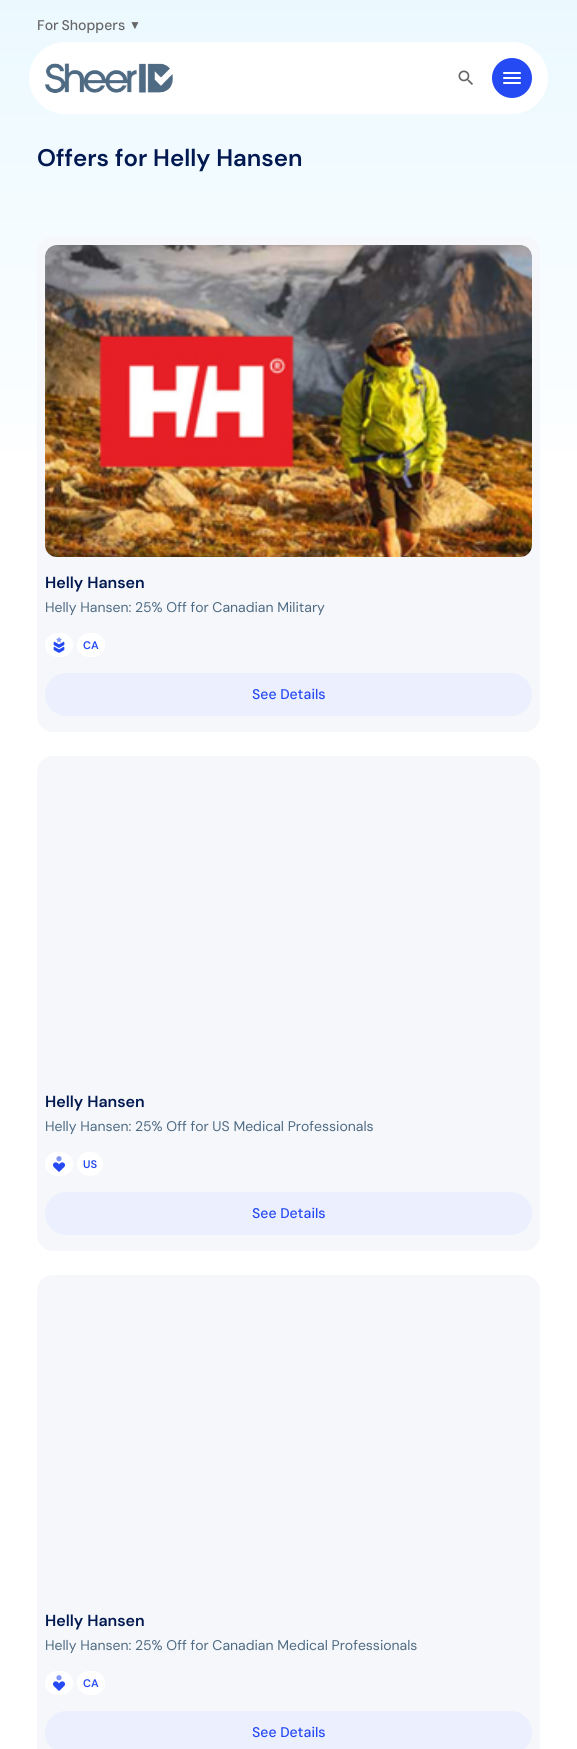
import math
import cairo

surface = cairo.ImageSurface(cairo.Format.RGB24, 577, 1749)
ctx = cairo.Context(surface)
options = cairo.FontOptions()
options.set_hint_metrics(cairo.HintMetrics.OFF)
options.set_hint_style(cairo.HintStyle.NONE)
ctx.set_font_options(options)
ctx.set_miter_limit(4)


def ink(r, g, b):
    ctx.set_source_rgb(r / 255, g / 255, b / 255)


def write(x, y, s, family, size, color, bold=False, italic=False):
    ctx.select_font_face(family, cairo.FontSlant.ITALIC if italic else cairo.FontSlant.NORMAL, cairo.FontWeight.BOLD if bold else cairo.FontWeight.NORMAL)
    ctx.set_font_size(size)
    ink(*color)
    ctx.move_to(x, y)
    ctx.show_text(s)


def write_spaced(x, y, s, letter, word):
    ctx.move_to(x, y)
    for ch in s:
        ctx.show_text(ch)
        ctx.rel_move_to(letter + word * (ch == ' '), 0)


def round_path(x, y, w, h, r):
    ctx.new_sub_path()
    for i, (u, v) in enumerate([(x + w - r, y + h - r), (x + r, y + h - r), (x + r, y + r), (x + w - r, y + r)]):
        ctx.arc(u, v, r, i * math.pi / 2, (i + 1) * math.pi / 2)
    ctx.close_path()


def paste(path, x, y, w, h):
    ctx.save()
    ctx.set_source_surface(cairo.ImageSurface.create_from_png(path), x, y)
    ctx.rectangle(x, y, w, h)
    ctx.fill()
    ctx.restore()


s1 = dict(family="Liberation Sans", size=12, color=(102, 102, 102))
s2 = dict(family="DM Sans SemiBold", size=24, color=(1, 24, 81))
s3 = dict(family="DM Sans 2 SemiBold", size=16, color=(1, 24, 81))
s4 = dict(family="DM Sans", size=14, color=(79, 107, 132))
s5 = dict(family="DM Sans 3 SemiBold", size=11, color=(37, 74, 243))
s6 = dict(family="DM Sans Medium", size=14, color=(37, 74, 243))

ink(255, 255, 255)
ctx.paint()
gradient = cairo.LinearGradient(288, 0, 289, 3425)
gradient.add_color_stop_rgba(0, 0.922, 0.976, 1, 1)
gradient.add_color_stop_rgba(0.15, 1, 1, 1, 1)
ctx.set_source(gradient)
ctx.rectangle(0, 0, 577, 450)
ctx.fill()
ctx.select_font_face("DM Sans Medium")
ctx.set_font_size(14)
ink(102, 102, 102)
write_spaced(37, 30, "For Shoppers", 0, -1)
write(129, 29, "▼", **s1)
ink(255, 255, 255)
round_path(29, 42, 519, 72, 36)
ctx.fill()
paste("pic1.png", 44, 63, 129, 30)
paste("pic2.png", 458, 70, 15, 15)
ink(37, 74, 243)
ctx.arc(512, 78, 20, 0, 2 * math.pi)
ctx.fill()
ink(255, 255, 255)
round_path(503, 72, 18, 2, 1)
ctx.fill()
round_path(503, 77, 18, 2, 1)
ctx.fill()
round_path(503, 82, 18, 2, 1)
ctx.fill()
write(37, 166, "Offers for Helly Hansen", **s2)
ink(245, 247, 250)
round_path(37, 237, 503, 495, 16)
ctx.fill()
paste("pic3.png", 45, 245, 487, 312)
write(45, 588, "Helly Hansen", **s3)
write(45, 612, "Helly Hansen: 25% Off for Canadian Military", **s4)
ink(255, 255, 255)
round_path(45, 633, 28, 24, 12)
ctx.fill()
paste("pic4.png", 53, 637, 12, 16)
round_path(77, 633, 28, 24, 12)
ctx.fill()
write(83, 649, "CA", **s5)
ink(236, 239, 254)
round_path(45, 673, 487, 43, 21.5)
ctx.fill()
write(252, 699, "See Details", **s6)
ink(245, 247, 250)
round_path(37, 756, 503, 495, 16)
ctx.fill()
write(45, 1107, "Helly Hansen", **s3)
write(45, 1131, "Helly Hansen: 25% Off for US Medical Professionals", **s4)
ink(255, 255, 255)
round_path(45, 1152, 28, 24, 12)
ctx.fill()
paste("pic5.png", 53, 1156, 12, 16)
round_path(77, 1152, 26, 24, 12)
ctx.fill()
write(83, 1168, "US", **s5)
ink(236, 239, 254)
round_path(45, 1192, 487, 43, 21.5)
ctx.fill()
write(252, 1218, "See Details", **s6)
ink(245, 247, 250)
round_path(37, 1275, 503, 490, 16)
ctx.fill()
write(45, 1626, "Helly Hansen", **s3)
write(45, 1650, "Helly Hansen: 25% Off for Canadian Medical Professionals", **s4)
ink(255, 255, 255)
round_path(45, 1671, 28, 24, 12)
ctx.fill()
paste("pic5.png", 53, 1675, 12, 16)
round_path(77, 1671, 28, 24, 12)
ctx.fill()
write(83, 1687, "CA", **s5)
ink(236, 239, 254)
round_path(45, 1711, 487, 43, 21.5)
ctx.fill()
write(252, 1737, "See Details", **s6)
surface.write_to_png("screenshot.png")
